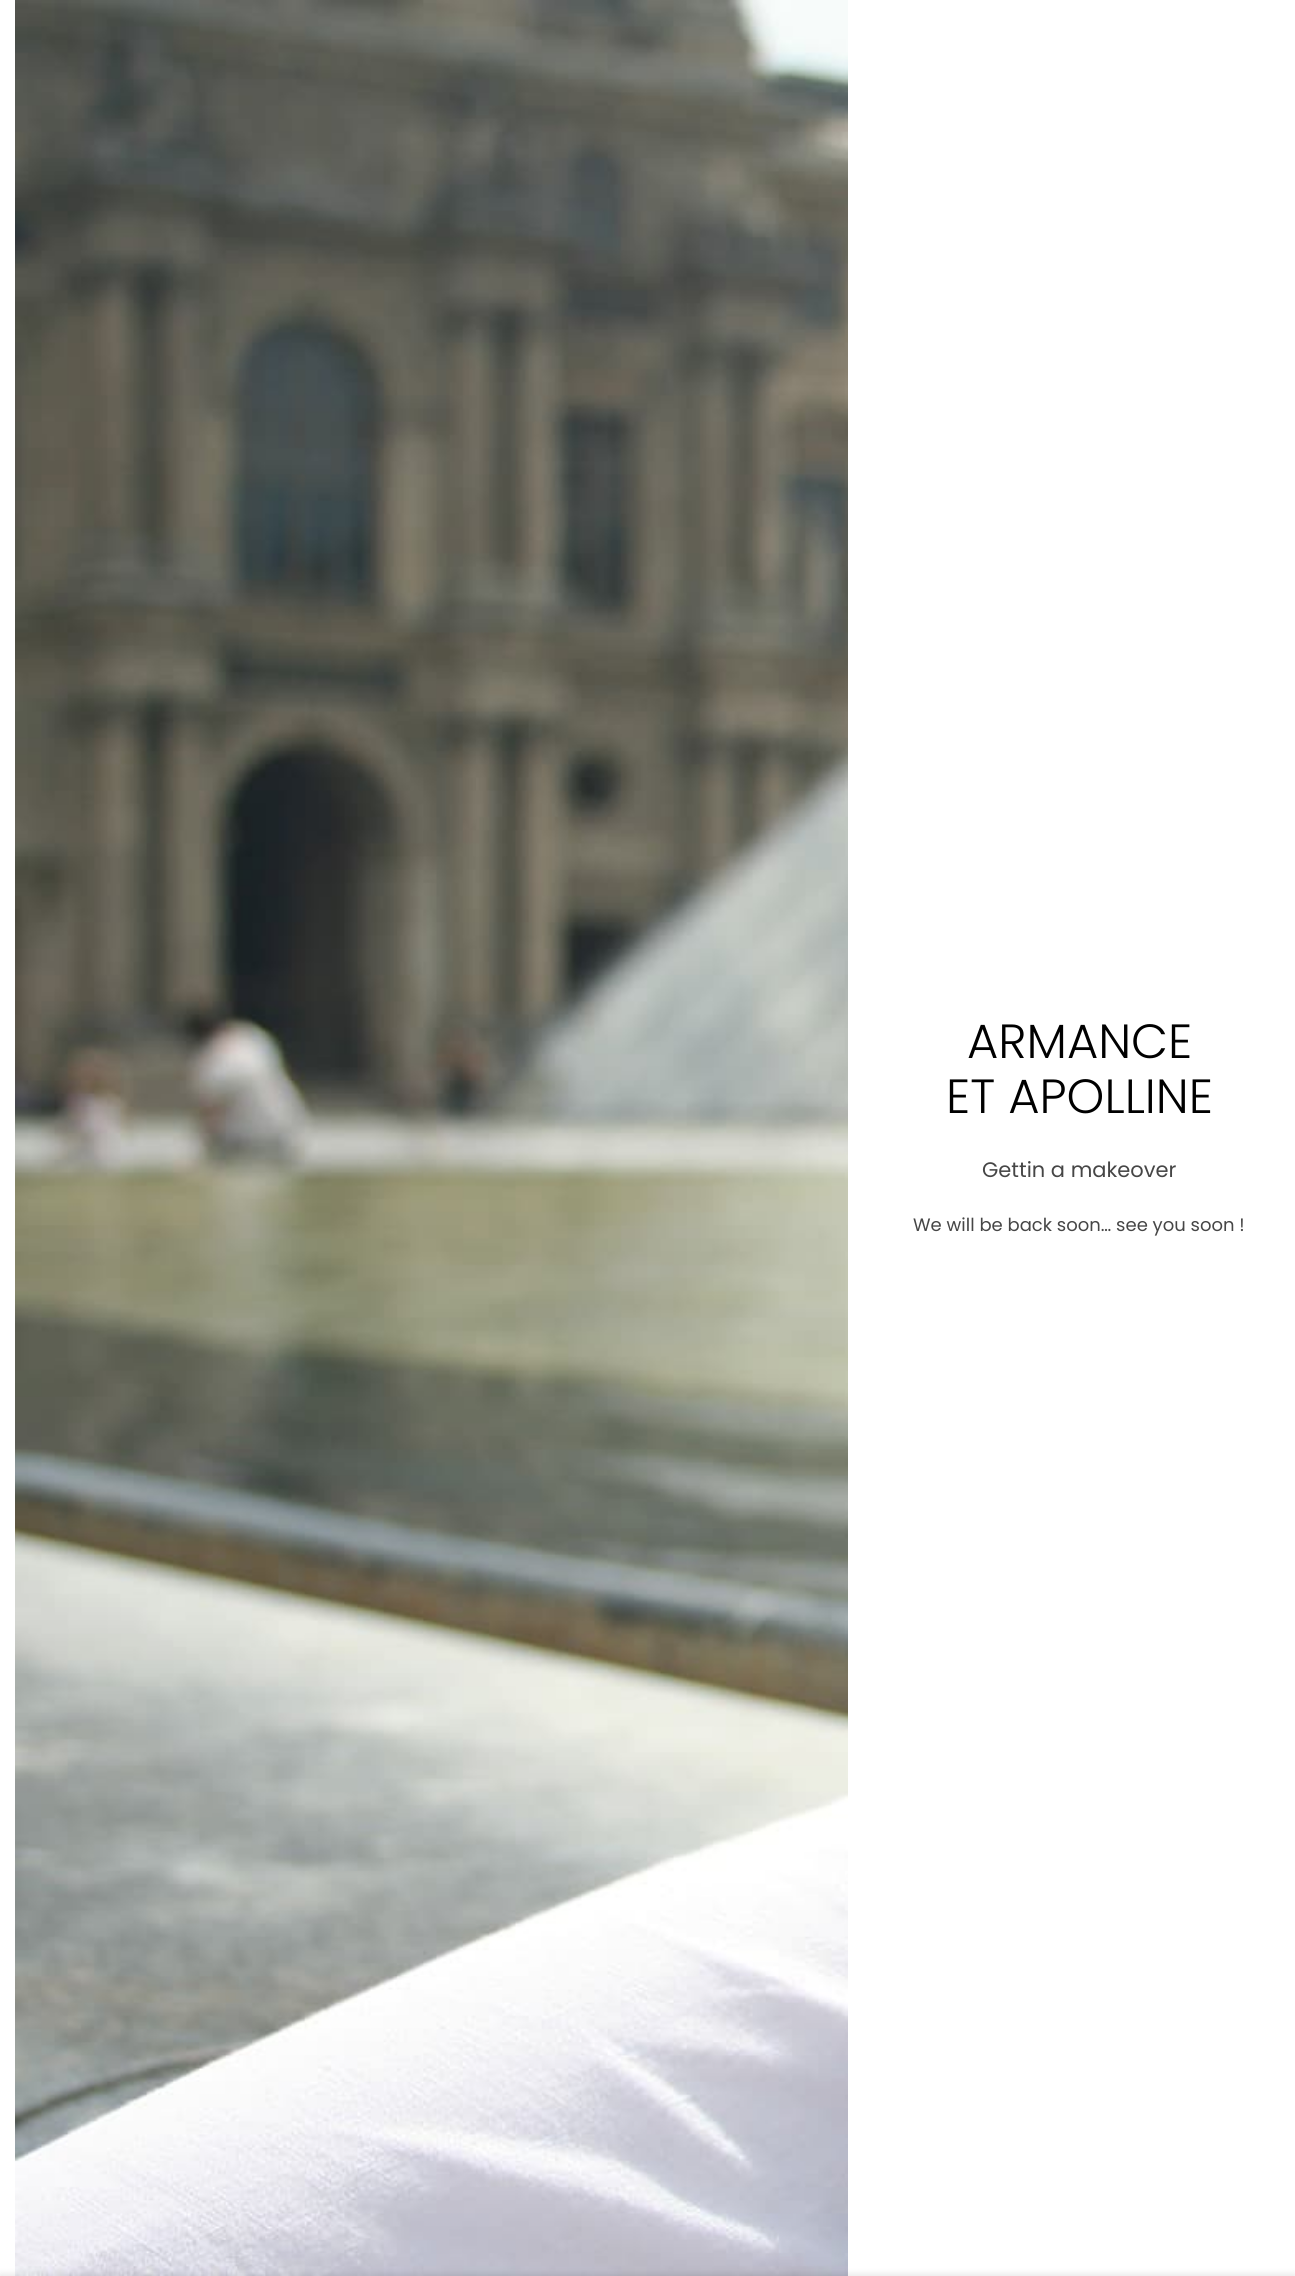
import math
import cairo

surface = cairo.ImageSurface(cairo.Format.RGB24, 1295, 2276)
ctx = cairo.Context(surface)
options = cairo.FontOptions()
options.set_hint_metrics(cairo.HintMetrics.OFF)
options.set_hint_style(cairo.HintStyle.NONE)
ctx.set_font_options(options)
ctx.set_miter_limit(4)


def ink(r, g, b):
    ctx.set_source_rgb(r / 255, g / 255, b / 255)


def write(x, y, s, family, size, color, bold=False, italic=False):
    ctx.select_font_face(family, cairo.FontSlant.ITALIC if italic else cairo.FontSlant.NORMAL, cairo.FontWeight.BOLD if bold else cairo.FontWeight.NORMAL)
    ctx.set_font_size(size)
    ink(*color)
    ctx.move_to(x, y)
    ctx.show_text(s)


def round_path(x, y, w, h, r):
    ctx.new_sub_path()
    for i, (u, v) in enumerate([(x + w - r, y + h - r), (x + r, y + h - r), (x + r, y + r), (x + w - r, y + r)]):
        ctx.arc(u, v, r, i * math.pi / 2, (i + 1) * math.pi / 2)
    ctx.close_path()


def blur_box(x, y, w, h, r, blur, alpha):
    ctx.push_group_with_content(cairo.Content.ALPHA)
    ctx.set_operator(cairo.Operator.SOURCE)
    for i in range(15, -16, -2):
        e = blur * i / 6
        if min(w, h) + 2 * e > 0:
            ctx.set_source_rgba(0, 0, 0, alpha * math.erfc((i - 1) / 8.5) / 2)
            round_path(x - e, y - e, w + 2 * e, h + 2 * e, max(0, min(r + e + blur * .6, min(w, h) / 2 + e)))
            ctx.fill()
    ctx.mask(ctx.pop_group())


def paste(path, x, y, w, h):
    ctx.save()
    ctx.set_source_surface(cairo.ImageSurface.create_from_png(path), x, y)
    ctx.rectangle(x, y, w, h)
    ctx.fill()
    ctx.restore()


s1 = dict(family="Poppins Light", size=48, color=(0, 0, 0))
s2 = dict(family="Poppins", size=21, color=(70, 70, 70))
s3 = dict(family="Poppins", size=18, color=(70, 70, 70))

ink(255, 255, 255)
ctx.paint()
paste("pic1.png", 15, 0, 833, 2276)
write(967, 1058, "ARMANCE", **s1)
write(946, 1113, "ET APOLLINE", **s1)
write(982, 1177, "Gettin a makeover", **s2)
write(913, 1231, "We will be back soon… see you soon !", **s3)
ink(0, 0, 0)
blur_box(0, 2276, 1295, 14, 0, 4.5, 0.14)
surface.write_to_png("screenshot.png")
